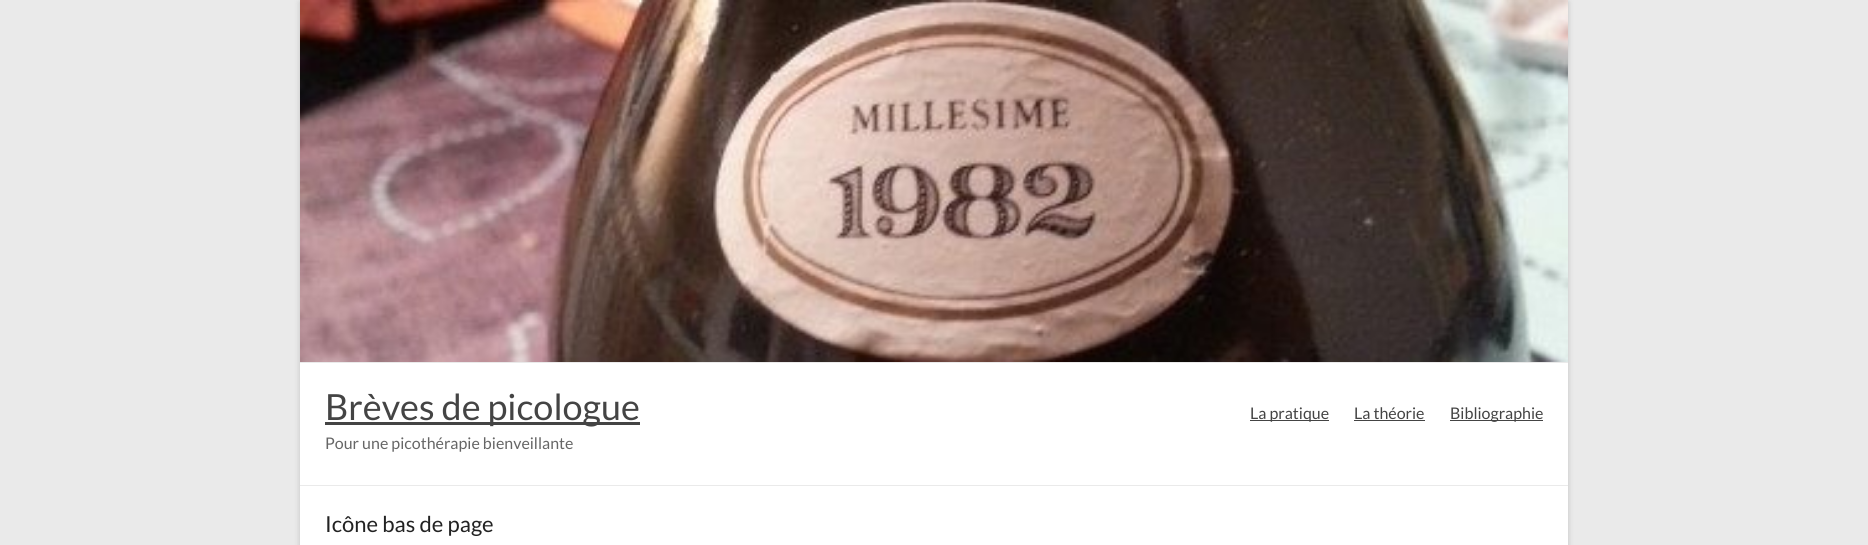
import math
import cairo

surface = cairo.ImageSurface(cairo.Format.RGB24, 1868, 545)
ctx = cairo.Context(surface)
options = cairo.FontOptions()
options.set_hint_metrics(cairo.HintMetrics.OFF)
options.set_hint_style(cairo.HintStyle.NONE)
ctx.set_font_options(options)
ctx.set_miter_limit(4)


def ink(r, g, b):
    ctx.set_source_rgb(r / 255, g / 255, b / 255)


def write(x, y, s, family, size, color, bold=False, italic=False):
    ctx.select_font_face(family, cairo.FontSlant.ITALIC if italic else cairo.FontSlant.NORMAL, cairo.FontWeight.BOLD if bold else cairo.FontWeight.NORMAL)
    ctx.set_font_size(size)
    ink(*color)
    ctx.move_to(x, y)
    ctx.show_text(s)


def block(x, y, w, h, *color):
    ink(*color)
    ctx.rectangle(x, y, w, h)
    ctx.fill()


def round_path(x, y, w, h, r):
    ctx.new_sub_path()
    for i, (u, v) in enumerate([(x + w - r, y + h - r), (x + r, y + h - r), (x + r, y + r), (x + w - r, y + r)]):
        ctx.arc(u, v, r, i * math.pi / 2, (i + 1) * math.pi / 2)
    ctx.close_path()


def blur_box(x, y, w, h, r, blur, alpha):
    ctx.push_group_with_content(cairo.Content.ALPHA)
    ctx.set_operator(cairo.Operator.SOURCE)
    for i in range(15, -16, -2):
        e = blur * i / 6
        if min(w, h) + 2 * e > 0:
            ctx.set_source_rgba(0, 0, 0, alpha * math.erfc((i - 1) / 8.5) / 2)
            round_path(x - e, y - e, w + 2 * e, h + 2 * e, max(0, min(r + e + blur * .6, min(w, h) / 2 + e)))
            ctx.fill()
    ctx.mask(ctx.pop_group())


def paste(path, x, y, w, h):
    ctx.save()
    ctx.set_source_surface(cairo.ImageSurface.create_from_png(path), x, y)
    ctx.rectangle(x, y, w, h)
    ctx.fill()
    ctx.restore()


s1 = dict(family="Lato", size=36, color=(68, 68, 68))
s2 = dict(family="Lato", size=16, color=(102, 102, 102))
s3 = dict(family="Lato", size=16, color=(68, 68, 68))
s4 = dict(family="Lato", size=22, color=(34, 34, 34))

ink(234, 234, 234)
ctx.paint()
ink(100, 100, 100)
blur_box(300, 2, 1268, 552, 0, 3, 0.3)
block(300, 363, 1268, 182, 255, 255, 255)
paste("pic1.png", 300, 0, 1268, 362)
block(300, 362, 1268, 1, 234, 234, 234)
block(300, 485, 1268, 1, 234, 234, 234)
block(325, 422, 315, 3, 68, 68, 68)
write(325, 420, "Brèves de picologue", **s1)
write(325, 449, "Pour une picothérapie bienveillante", **s2)
block(1250, 420, 79, 1, 68, 68, 68)
write(1250, 419, "La pratique", **s3)
write(1354, 419, "La théorie", **s3)
block(1354, 420, 71, 1, 68, 68, 68)
block(1450, 420, 93, 1, 68, 68, 68)
write(1450, 419, "Bibliographie", **s3)
write(325, 532, "Icône bas de page", **s4)
surface.write_to_png("screenshot.png")
